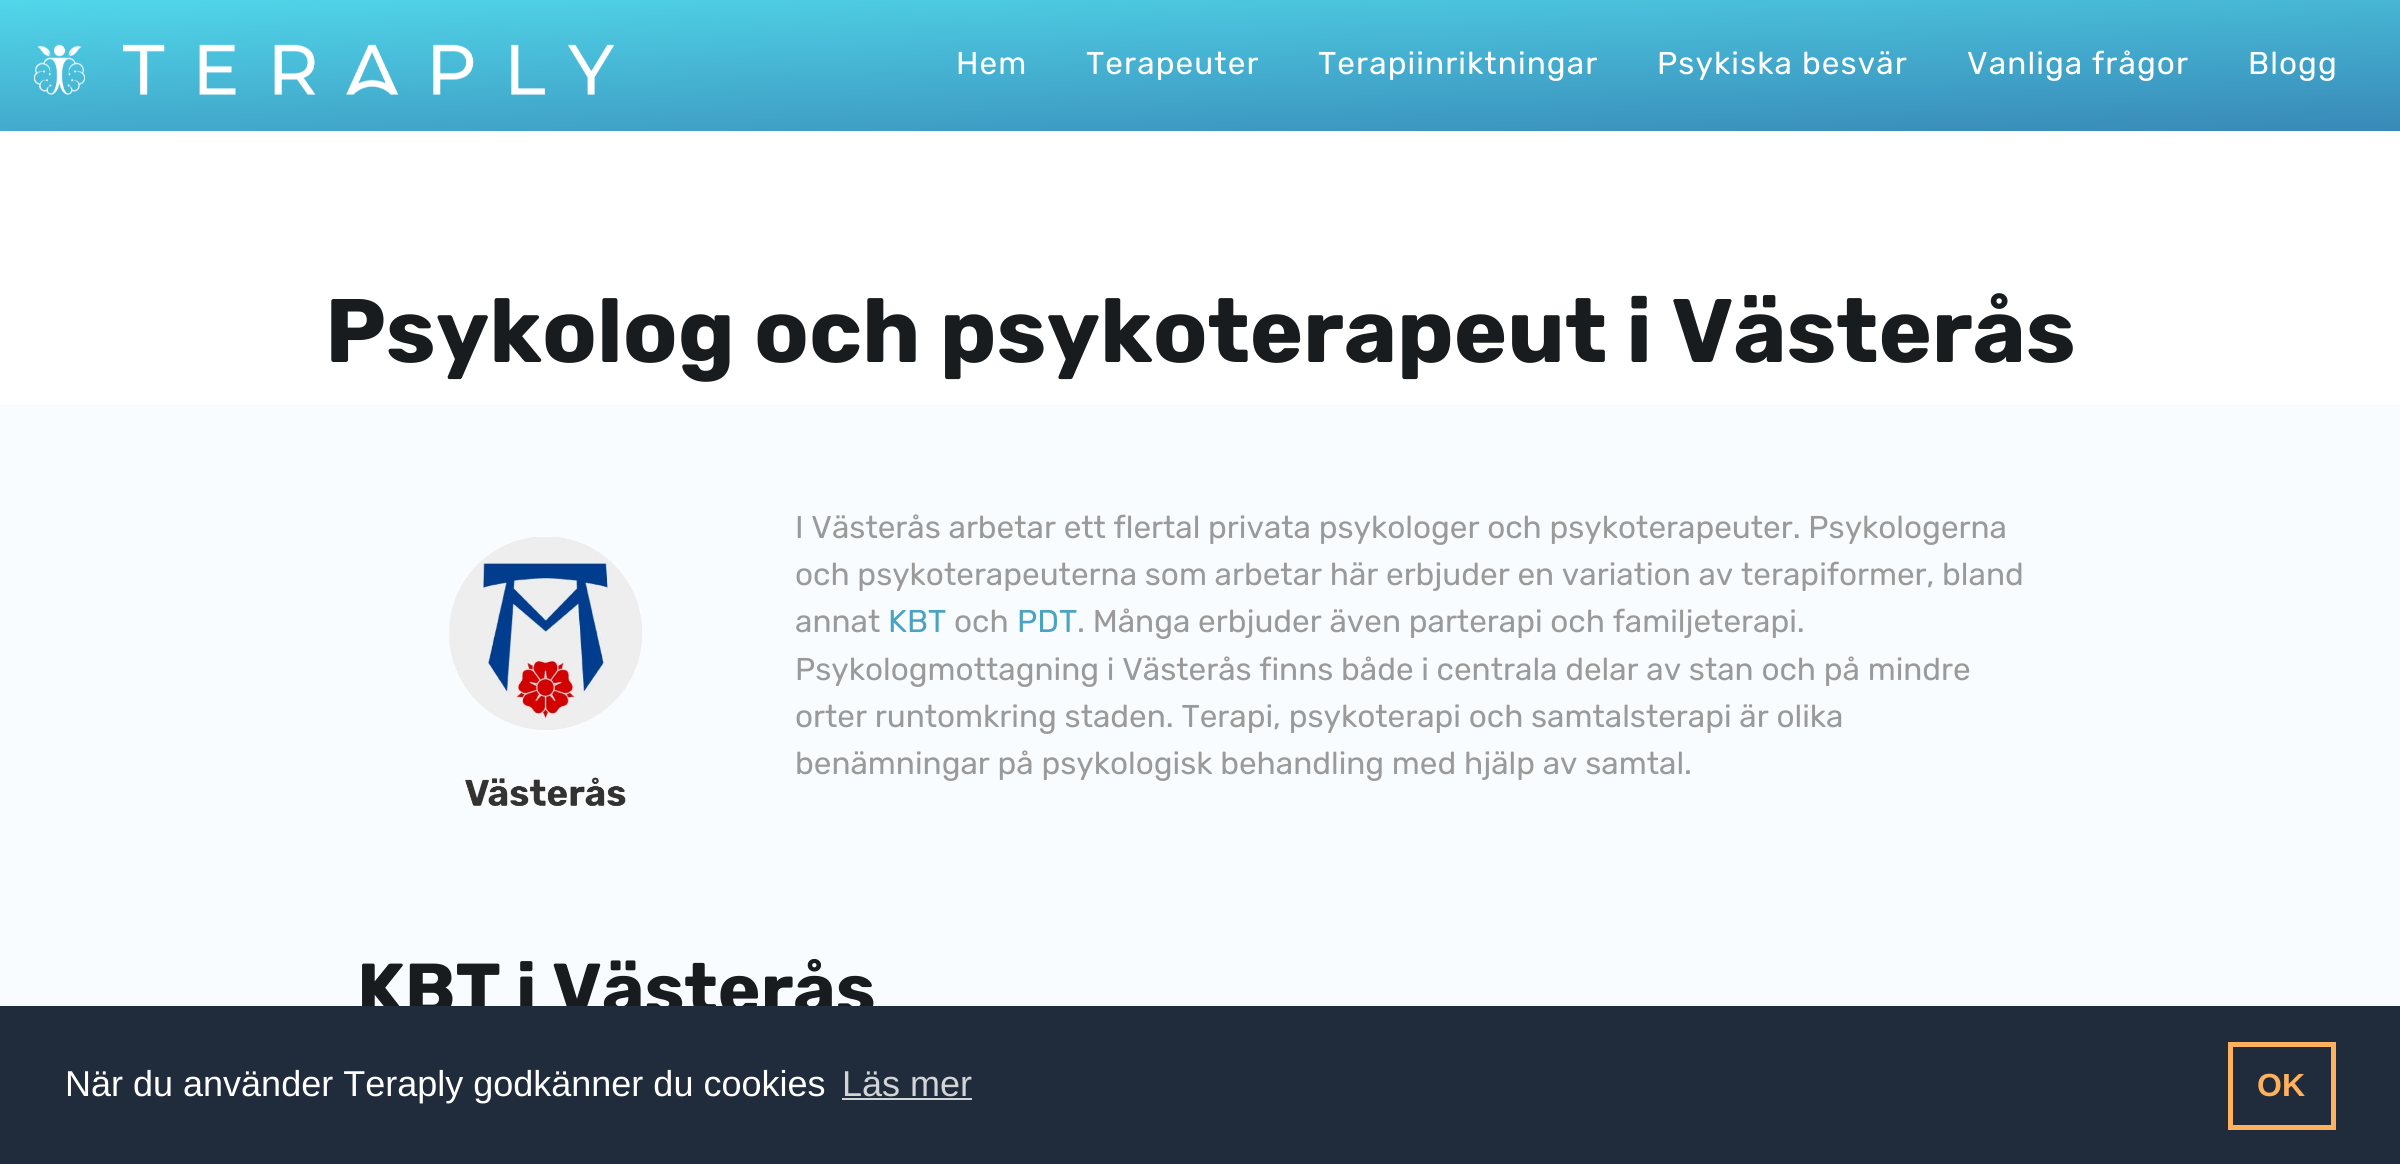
import math
import cairo

surface = cairo.ImageSurface(cairo.Format.RGB24, 2400, 1164)
ctx = cairo.Context(surface)
options = cairo.FontOptions()
options.set_hint_metrics(cairo.HintMetrics.OFF)
options.set_hint_style(cairo.HintStyle.NONE)
ctx.set_font_options(options)
ctx.set_miter_limit(4)


def ink(r, g, b):
    ctx.set_source_rgb(r / 255, g / 255, b / 255)


def write(x, y, s, family, size, color, bold=False, italic=False):
    ctx.select_font_face(family, cairo.FontSlant.ITALIC if italic else cairo.FontSlant.NORMAL, cairo.FontWeight.BOLD if bold else cairo.FontWeight.NORMAL)
    ctx.set_font_size(size)
    ink(*color)
    ctx.move_to(x, y)
    ctx.show_text(s)


def write_spaced(x, y, s, letter, word):
    ctx.move_to(x, y)
    for ch in s:
        ctx.show_text(ch)
        ctx.rel_move_to(letter + word * (ch == ' '), 0)


def block(x, y, w, h, *color):
    ink(*color)
    ctx.rectangle(x, y, w, h)
    ctx.fill()


def paste(path, x, y, w, h):
    ctx.save()
    ctx.set_source_surface(cairo.ImageSurface.create_from_png(path), x, y)
    ctx.rectangle(x, y, w, h)
    ctx.fill()
    ctx.restore()


s1 = dict(family="Rubik", size=90, color=(25, 28, 30), bold=True)
s2 = dict(family="Rubik", size=31.5, color=(154, 154, 154))
s3 = dict(family="Rubik", size=31.5, color=(76, 163, 193))
s4 = dict(family="Rubik", size=72, color=(25, 28, 30), bold=True)
s5 = dict(family="Liberation Sans", size=36, color=(255, 255, 255))
s6 = dict(family="Liberation Sans", size=36, color=(210, 213, 216))
s7 = dict(family="Liberation Sans", size=32, color=(255, 177, 94), bold=True)

ink(255, 255, 255)
ctx.paint()
gradient = cairo.LinearGradient(1196, -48, 1205, 179)
gradient.add_color_stop_rgba(0, 0.318, 0.843, 0.918, 1)
gradient.add_color_stop_rgba(1, 0.22, 0.537, 0.718, 1)
ctx.set_source(gradient)
ctx.rectangle(0, 0, 2400, 131)
ctx.fill()
paste("pic1.png", 34, 44, 581, 51)
ctx.select_font_face("Rubik")
ctx.set_font_size(31.5)
ink(255, 255, 255)
write_spaced(956, 74, "Hem", 1.1, 0)
write_spaced(1086, 74, "Terapeuter", 1.1, 0)
write_spaced(1318, 74, "Terapiinriktningar", 1.1, 0)
write_spaced(1657, 74, "Psykiska besvär", 1.1, 0)
write_spaced(1967, 74, "Vanliga frågor", 1.1, 0)
write_spaced(2248, 74, "Blogg", 1.1, 0)
write(325, 362, "Psykolog och psykoterapeut i Västerås", **s1)
block(0, 405, 2400, 601, 249, 252, 255)
paste("pic2.png", 449, 537, 194, 271)
write(795, 538, "I Västerås arbetar ett flertal privata psykologer och psykoterapeuter. Psykologerna", **s2)
write(795, 585, "och psykoterapeuterna som arbetar här erbjuder en variation av terapiformer, bland", **s2)
write(795, 632, "annat", **s2)
write(888, 632, "KBT", **s3)
write(954, 632, "och", **s2)
write(1017, 632, "PDT", **s3)
write(1077, 632, ". Många erbjuder även parterapi och familjeterapi.", **s2)
write(795, 680, "Psykologmottagning i Västerås finns både i centrala delar av stan och på mindre", **s2)
write(795, 727, "orter runtomkring staden. Terapi, psykoterapi och samtalsterapi är olika", **s2)
write(795, 774, "benämningar på psykologisk behandling med hjälp av samtal.", **s2)
write(357, 1014, "KBT i Västerås", **s4)
block(0, 1006, 2400, 158, 32, 43, 59)
write(65, 1096, "När du använder Teraply godkänner du cookies", **s5)
write(842, 1096, "Läs mer", **s6)
block(842, 1098, 130, 2, 210, 213, 216)
ctx.rectangle(2230.5, 1044.5, 103, 83)
ink(255, 177, 94)
ctx.set_line_width(5)
ctx.stroke()
write(2257, 1096, "OK", **s7)
surface.write_to_png("screenshot.png")
